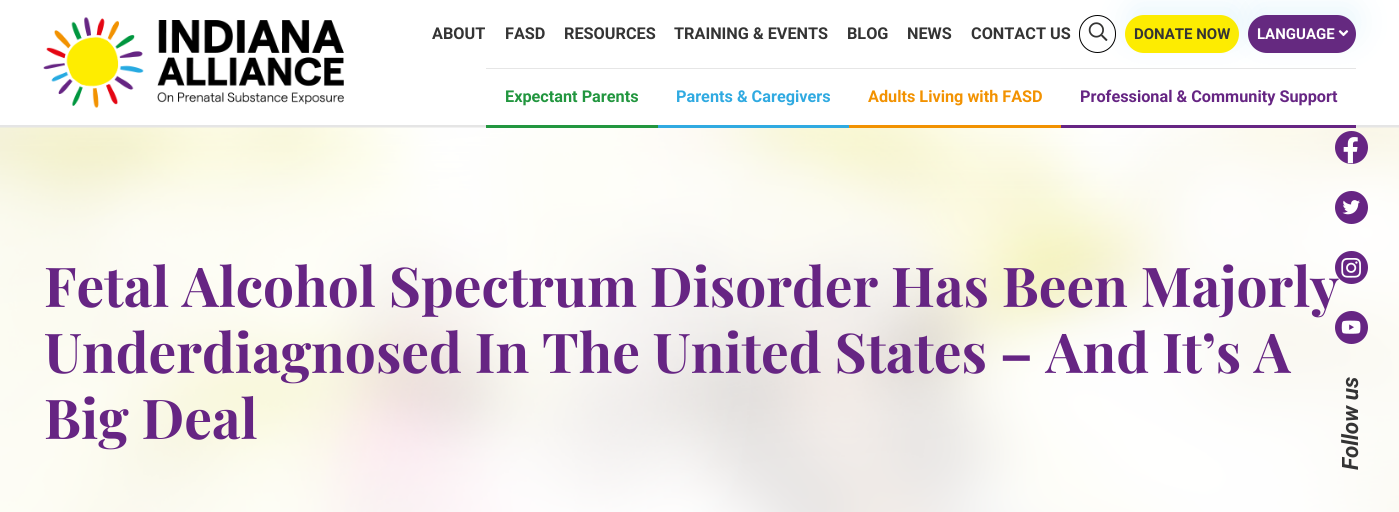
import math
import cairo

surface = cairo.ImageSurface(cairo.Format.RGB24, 1399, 512)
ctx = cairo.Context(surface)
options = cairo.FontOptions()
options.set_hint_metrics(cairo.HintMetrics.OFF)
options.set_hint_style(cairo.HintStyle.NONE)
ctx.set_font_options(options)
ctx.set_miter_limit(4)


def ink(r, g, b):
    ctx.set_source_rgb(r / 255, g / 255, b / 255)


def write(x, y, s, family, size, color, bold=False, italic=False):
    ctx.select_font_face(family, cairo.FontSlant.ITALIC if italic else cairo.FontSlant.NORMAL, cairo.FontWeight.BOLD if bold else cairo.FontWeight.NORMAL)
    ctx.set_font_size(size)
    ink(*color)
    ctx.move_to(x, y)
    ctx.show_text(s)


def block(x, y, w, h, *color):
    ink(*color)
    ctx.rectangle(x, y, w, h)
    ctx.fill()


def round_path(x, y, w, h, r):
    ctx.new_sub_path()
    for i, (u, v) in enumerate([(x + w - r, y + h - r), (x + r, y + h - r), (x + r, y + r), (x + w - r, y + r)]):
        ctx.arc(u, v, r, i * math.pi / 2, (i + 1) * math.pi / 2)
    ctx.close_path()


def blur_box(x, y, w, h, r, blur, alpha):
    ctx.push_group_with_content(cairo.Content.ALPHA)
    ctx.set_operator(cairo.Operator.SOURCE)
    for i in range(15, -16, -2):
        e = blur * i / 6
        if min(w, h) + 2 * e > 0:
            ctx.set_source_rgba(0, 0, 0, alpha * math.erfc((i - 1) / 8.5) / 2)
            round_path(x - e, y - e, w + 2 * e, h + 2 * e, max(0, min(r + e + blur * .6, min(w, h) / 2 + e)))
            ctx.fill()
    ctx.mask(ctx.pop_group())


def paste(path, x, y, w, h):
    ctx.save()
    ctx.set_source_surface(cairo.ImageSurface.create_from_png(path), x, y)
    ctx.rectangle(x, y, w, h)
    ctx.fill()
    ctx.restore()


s1 = dict(family="Roboto", size=16.25, color=(52, 52, 52), bold=True)
s2 = dict(family="Roboto", size=15, color=(52, 52, 52), bold=True)
s3 = dict(family="Roboto", size=15, color=(255, 255, 255), bold=True)
s4 = dict(family="Roboto", size=16.25, color=(34, 150, 63), bold=True)
s5 = dict(family="Roboto", size=16.25, color=(48, 170, 225), bold=True)
s6 = dict(family="Roboto", size=16.25, color=(242, 146, 1), bold=True)
s7 = dict(family="Roboto", size=16.25, color=(102, 37, 131), bold=True)
s8 = dict(family="Playfair Display", size=55, color=(102, 37, 131), bold=True)
s9 = dict(family="Roboto", size=22.5, color=(52, 52, 52), bold=True, italic=True)

ink(255, 255, 255)
ctx.paint()
block(0, 125, 1399, 3, 229, 229, 229)
paste("pic1.png", 43, 17, 301, 91)
write(432, 39, "ABOUT", **s1)
write(505, 39, "FASD", **s1)
write(564, 39, "RESOURCES", **s1)
write(674, 39, "TRAINING & EVENTS", **s1)
write(847, 39, "BLOG", **s1)
write(907, 39, "NEWS", **s1)
write(971, 39, "CONTACT US", **s1)
ink(48, 171, 225)
blur_box(1128, 4, 113, 37, 18.5, 15.5, 0.1)
round_path(1079.5, 15.5, 36, 37, 18)
ink(0, 0, 0)
ctx.set_line_width(1)
ctx.stroke()
paste("pic2.png", 1088, 22, 20, 19)
ink(253, 236, 1)
round_path(1126.5, 16.5, 111, 35, 17.5)
ctx.fill_preserve()
ctx.set_line_width(3)
ctx.stroke()
write(1134, 39, "DONATE NOW", **s2)
ink(48, 171, 225)
blur_box(1250, 4, 109, 37, 18.5, 15.5, 0.1)
ink(101, 41, 128)
round_path(1249.5, 16.5, 105, 35, 17.5)
ctx.fill_preserve()
ctx.stroke()
write(1257, 39, "LANGUAGE", **s3)
paste("pic3.png", 1338, 30, 11, 7)
block(486, 68, 575, 1, 230, 230, 230)
paste("pic4.png", 0, 127, 1399, 385)
block(486, 125, 172, 3, 34, 150, 63)
write(505, 102, "Expectant Parents", **s4)
block(658, 125, 191, 3, 48, 170, 225)
write(676, 102, "Parents & Caregivers", **s5)
block(849, 125, 212, 3, 242, 146, 1)
write(868, 102, "Adults Living with FASD", **s6)
block(1061, 68, 295, 1, 229, 229, 229)
block(1061, 125, 295, 3, 102, 37, 131)
write(1080, 102, "Professional & Community Support", **s7)
write(44, 307, "Fetal Alcohol Spectrum Disorder Has Been Majorly", **s8)
write(44, 373, "Underdiagnosed In The United States – And It’s A", **s8)
write(44, 439, "Big Deal", **s8)
ctx.new_path()
ctx.arc(1351.5, 147.5, 16.5, 0, 2 * math.pi)
ctx.fill()
paste("pic5.png", 1343, 137, 15, 27)
ctx.arc(1351.5, 207.5, 16.5, 0, 2 * math.pi)
ctx.fill()
paste("pic6.png", 1342, 200, 18, 15)
ctx.arc(1351.5, 267.5, 16.5, 0, 2 * math.pi)
ctx.fill()
paste("pic7.png", 1341, 258, 20, 20)
ctx.arc(1351.5, 327.5, 16.5, 0, 2 * math.pi)
ctx.fill()
paste("pic8.png", 1341, 320, 20, 14)
ctx.save()
ctx.translate(1358, 470)
ctx.rotate(-90 * math.pi / 180)
write(0, 0, "Follow us", **s9)
ctx.restore()
surface.write_to_png("screenshot.png")
